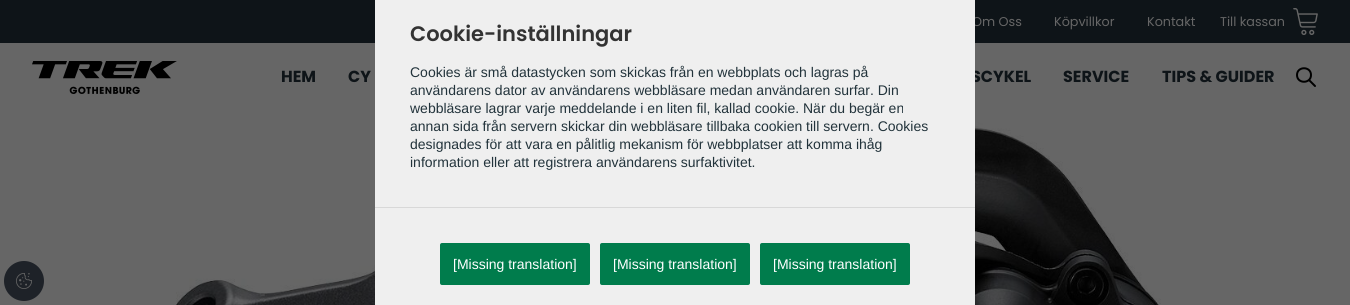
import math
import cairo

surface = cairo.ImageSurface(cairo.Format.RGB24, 1350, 305)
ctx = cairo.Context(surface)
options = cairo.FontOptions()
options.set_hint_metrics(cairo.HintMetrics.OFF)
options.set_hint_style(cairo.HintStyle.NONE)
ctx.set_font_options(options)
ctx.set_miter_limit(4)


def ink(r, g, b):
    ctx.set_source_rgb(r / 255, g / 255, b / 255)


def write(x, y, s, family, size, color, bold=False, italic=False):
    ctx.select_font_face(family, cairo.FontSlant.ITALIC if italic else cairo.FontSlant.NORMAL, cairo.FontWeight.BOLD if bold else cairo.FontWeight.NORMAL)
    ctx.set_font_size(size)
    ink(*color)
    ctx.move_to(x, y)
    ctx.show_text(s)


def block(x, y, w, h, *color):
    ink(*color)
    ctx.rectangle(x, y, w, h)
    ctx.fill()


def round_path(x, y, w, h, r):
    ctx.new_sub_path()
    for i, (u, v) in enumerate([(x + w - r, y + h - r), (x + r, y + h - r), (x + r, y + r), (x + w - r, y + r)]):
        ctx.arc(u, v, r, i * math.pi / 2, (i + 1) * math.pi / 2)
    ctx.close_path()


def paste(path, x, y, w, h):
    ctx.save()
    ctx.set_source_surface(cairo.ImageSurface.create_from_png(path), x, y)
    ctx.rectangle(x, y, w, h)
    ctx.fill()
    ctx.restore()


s1 = dict(family="Poppins", size=12.75, color=(102, 102, 102))
s2 = dict(family="Poppins", size=16, color=(14, 20, 24), bold=True)
s3 = dict(family="Poppins SemiBold", size=21, color=(51, 51, 51))
s4 = dict(family="Liberation Sans", size=14, color=(34, 51, 59))
s5 = dict(family="Liberation Sans", size=14, color=(255, 255, 255))

ink(102, 102, 102)
ctx.paint()
block(0, 0, 1350, 43, 14, 20, 24)
write(972, 26, "Om Oss", **s1)
write(1054, 26, "Köpvillkor", **s1)
write(1147, 26, "Kontakt", **s1)
write(1220, 26, "Till kassan", **s1)
paste("pic1.png", 1293, 8, 25, 27)
paste("pic2.png", 32, 61, 145, 33)
write(281, 82, "HEM", **s2)
write(348, 82, "CY", **s2)
write(971, 82, "SCYKEL", **s2)
write(1063, 82, "SERVICE", **s2)
write(1162, 82, "TIPS & GUIDER", **s2)
ctx.new_path()
ctx.move_to(1315, 86)
ctx.line_to(1309, 80)
ctx.move_to(1311, 75)
ctx.curve_to(1311, 84, 1297, 84, 1297, 75)
ctx.curve_to(1297, 66, 1311, 66, 1311, 75)
ctx.close_path()
ink(0, 0, 0)
ctx.set_line_cap(cairo.LineCap.ROUND)
ctx.set_line_join(cairo.LineJoin.ROUND)
ctx.stroke()
paste("pic4.png", 173, 115, 988, 190)
block(375, 0, 600, 305, 239, 239, 239)
block(375, 207, 600, 1, 216, 216, 216)
write(410, 41, "Cookie-inställningar", **s3)
write(410, 77, "Cookies är små datastycken som skickas från en webbplats och lagras på", **s4)
write(410, 95, "användarens dator av användarens webbläsare medan användaren surfar. Din", **s4)
write(410, 113, "webbläsare lagrar varje meddelande i en liten fil, kallad cookie. När du begär en", **s4)
write(410, 131, "annan sida från servern skickar din webbläsare tillbaka cookien till servern. Cookies", **s4)
write(410, 149, "designades för att vara en pålitlig mekanism för webbplatser att komma ihåg", **s4)
write(410, 167, "information eller att registrera användarens surfaktivitet.", **s4)
ink(0, 124, 76)
round_path(440, 243, 150, 42, 2)
ctx.fill()
write(453, 269, "[Missing translation]", **s5)
ink(0, 124, 76)
round_path(600, 243, 150, 42, 2)
ctx.fill()
write(613, 269, "[Missing translation]", **s5)
ink(0, 124, 76)
round_path(760, 243, 150, 42, 2)
ctx.fill()
write(773, 269, "[Missing translation]", **s5)
ink(30, 34, 40)
ctx.new_path()
ctx.arc(24, 281, 20, 0, 2 * math.pi)
ctx.fill()
paste("pic3.png", 16, 273, 16, 16)
surface.write_to_png("screenshot.png")
